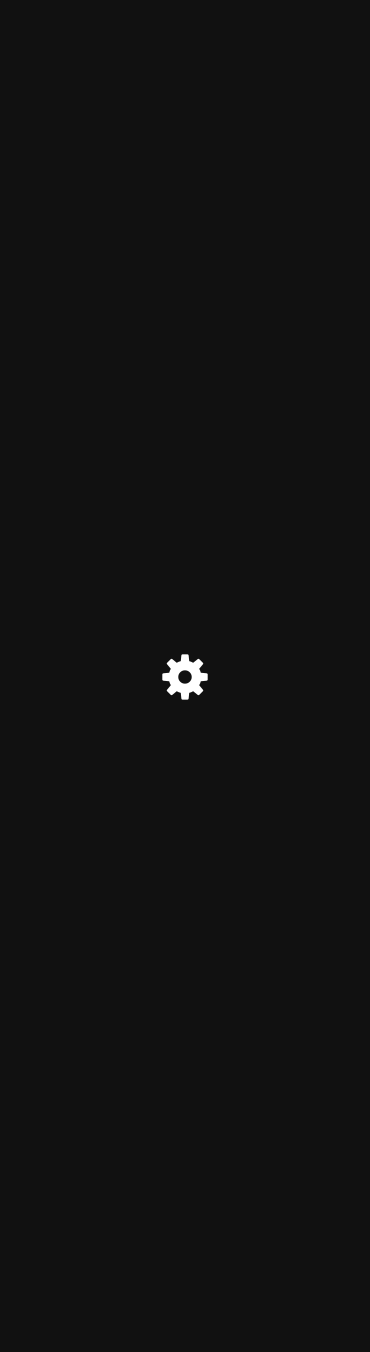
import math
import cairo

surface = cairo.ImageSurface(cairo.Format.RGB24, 370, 1352)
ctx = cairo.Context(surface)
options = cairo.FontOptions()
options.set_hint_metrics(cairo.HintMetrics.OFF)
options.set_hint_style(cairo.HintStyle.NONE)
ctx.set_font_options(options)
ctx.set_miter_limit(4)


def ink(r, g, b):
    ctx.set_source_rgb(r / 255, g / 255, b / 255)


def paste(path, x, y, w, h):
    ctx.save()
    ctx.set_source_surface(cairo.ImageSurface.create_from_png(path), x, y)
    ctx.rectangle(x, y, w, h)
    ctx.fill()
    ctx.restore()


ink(17, 17, 17)
ctx.paint()
paste("pic1.png", 162, 654, 46, 46)
surface.write_to_png("screenshot.png")
